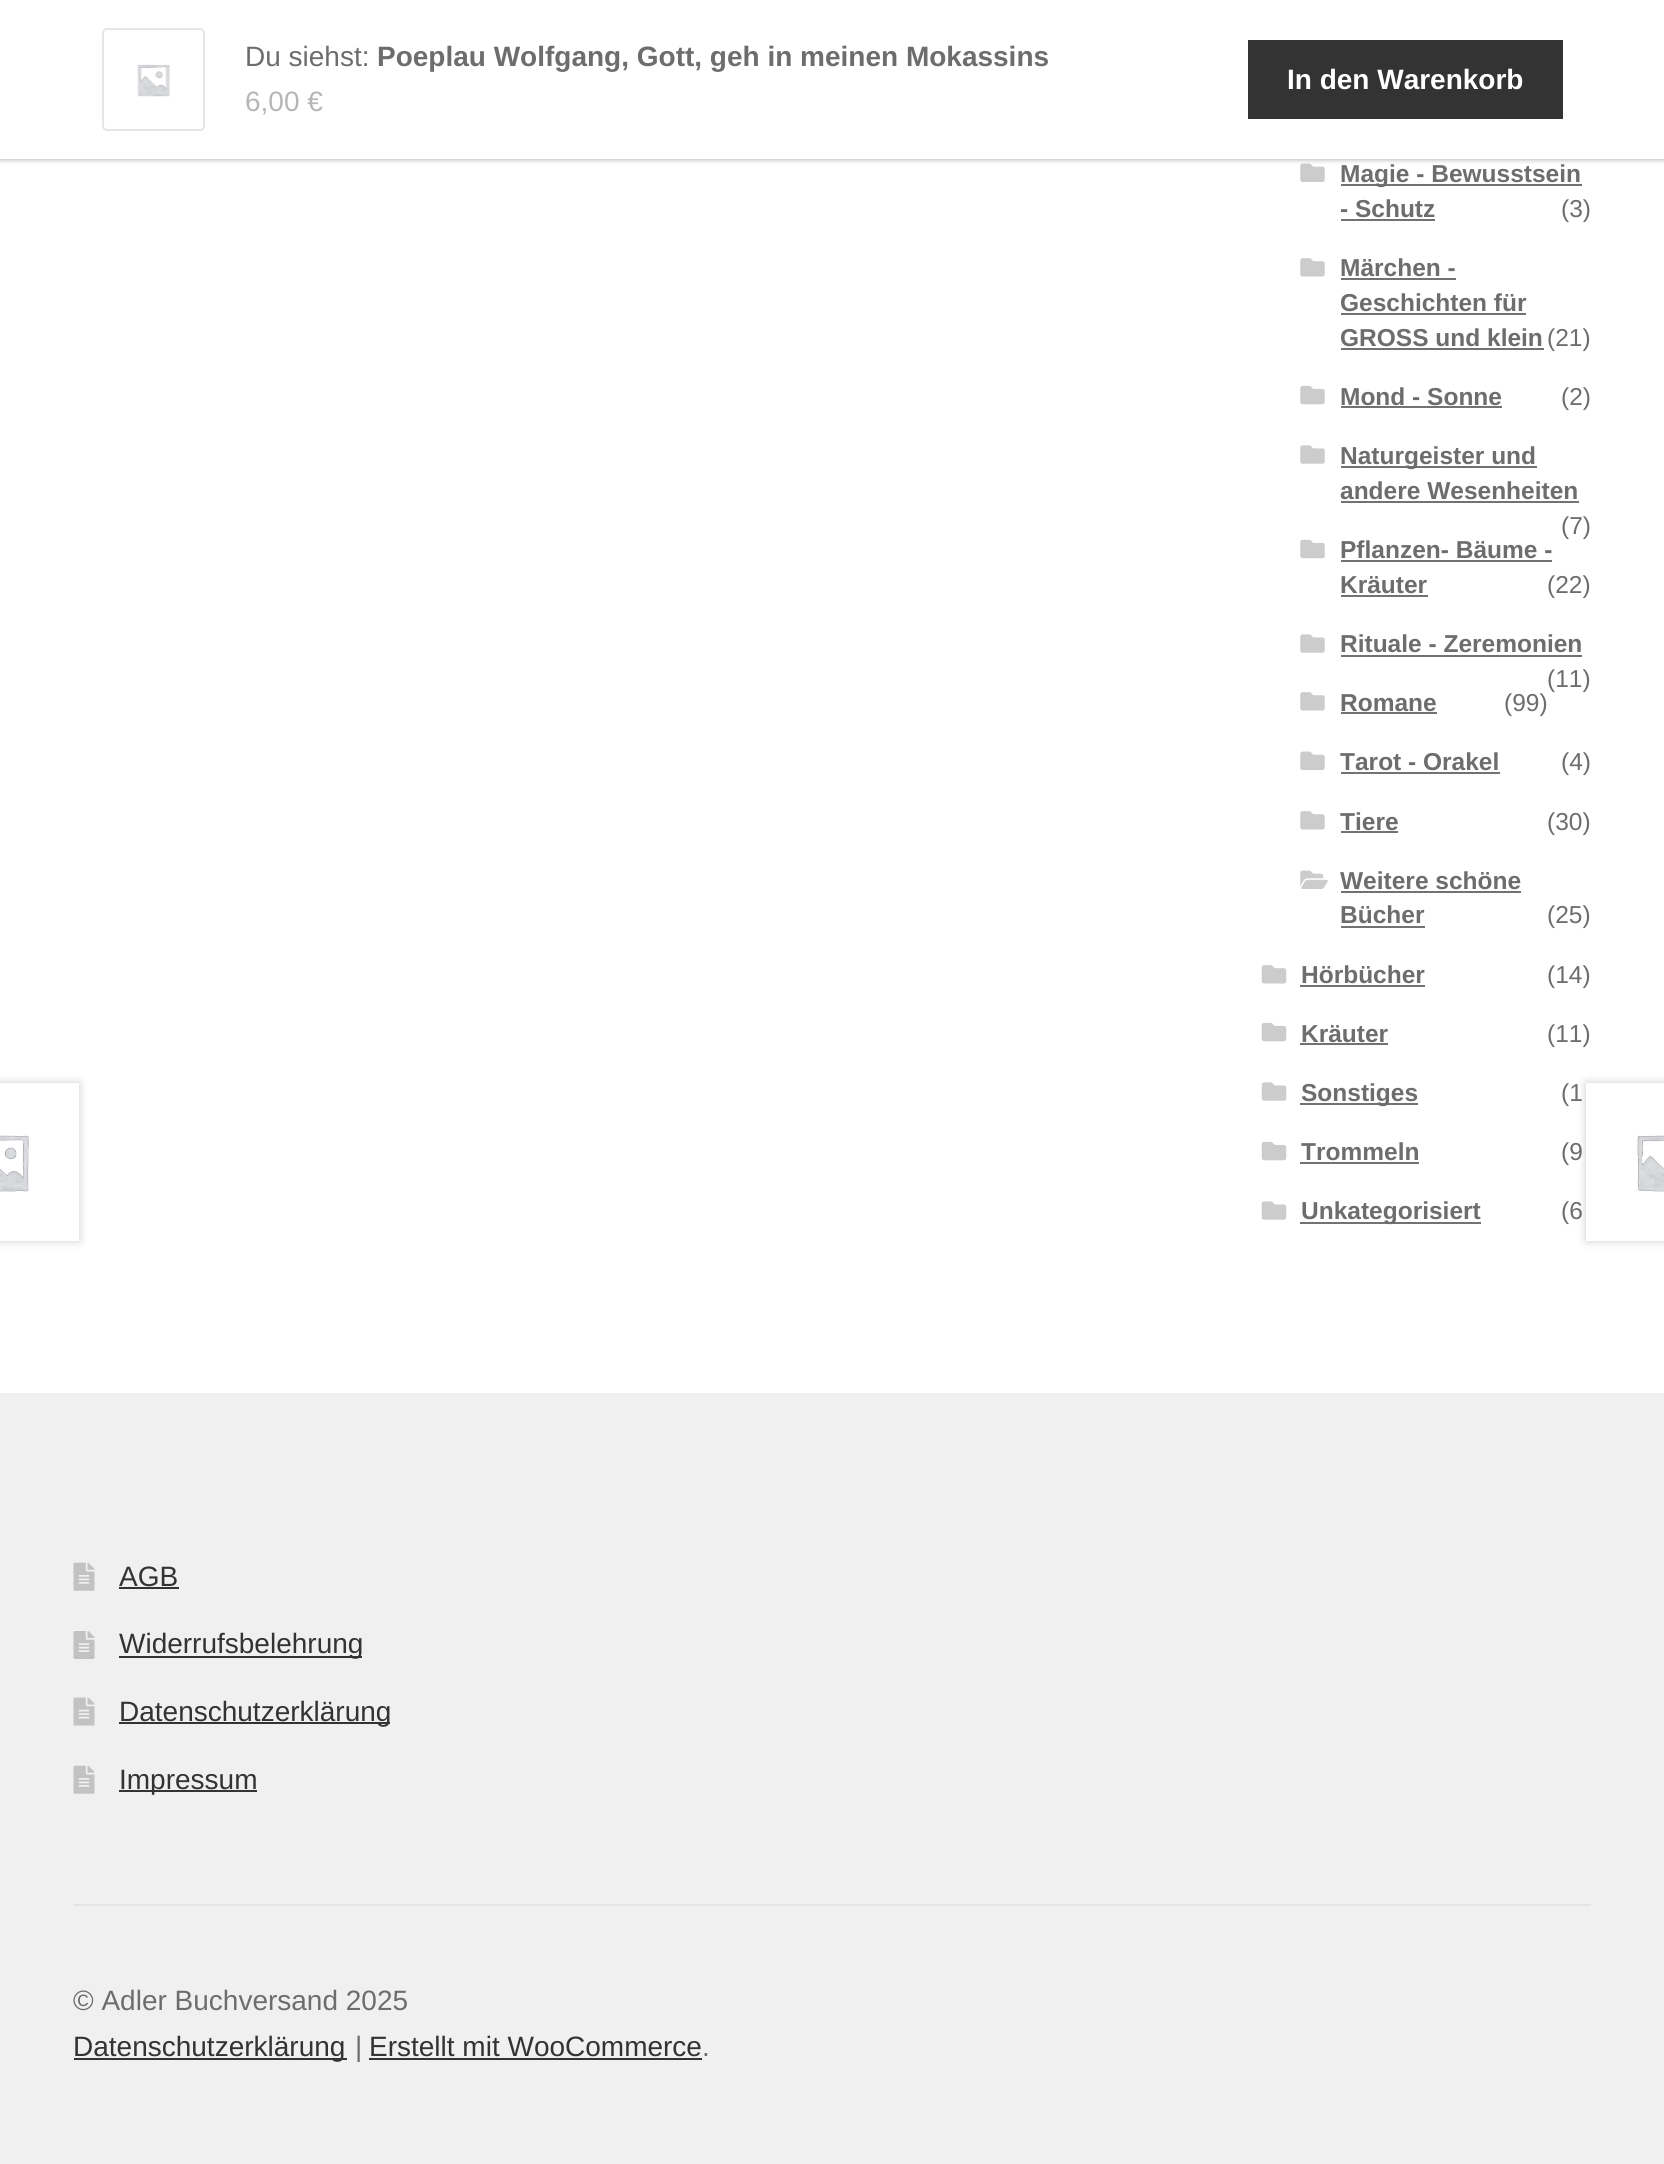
import math
import cairo

surface = cairo.ImageSurface(cairo.Format.RGB24, 1664, 2164)
ctx = cairo.Context(surface)
options = cairo.FontOptions()
options.set_hint_metrics(cairo.HintMetrics.OFF)
options.set_hint_style(cairo.HintStyle.NONE)
ctx.set_font_options(options)
ctx.set_miter_limit(4)


def ink(r, g, b):
    ctx.set_source_rgb(r / 255, g / 255, b / 255)


def write(x, y, s, family, size, color, bold=False, italic=False):
    ctx.select_font_face(family, cairo.FontSlant.ITALIC if italic else cairo.FontSlant.NORMAL, cairo.FontWeight.BOLD if bold else cairo.FontWeight.NORMAL)
    ctx.set_font_size(size)
    ink(*color)
    ctx.move_to(x, y)
    ctx.show_text(s)


def block(x, y, w, h, *color):
    ink(*color)
    ctx.rectangle(x, y, w, h)
    ctx.fill()


def round_path(x, y, w, h, r):
    ctx.new_sub_path()
    for i, (u, v) in enumerate([(x + w - r, y + h - r), (x + r, y + h - r), (x + r, y + r), (x + w - r, y + r)]):
        ctx.arc(u, v, r, i * math.pi / 2, (i + 1) * math.pi / 2)
    ctx.close_path()


def blur_box(x, y, w, h, r, blur, alpha):
    ctx.push_group_with_content(cairo.Content.ALPHA)
    ctx.set_operator(cairo.Operator.SOURCE)
    for i in range(15, -16, -2):
        e = blur * i / 6
        if min(w, h) + 2 * e > 0:
            ctx.set_source_rgba(0, 0, 0, alpha * math.erfc((i - 1) / 8.5) / 2)
            round_path(x - e, y - e, w + 2 * e, h + 2 * e, max(0, min(r + e + blur * .6, min(w, h) / 2 + e)))
            ctx.fill()
    ctx.mask(ctx.pop_group())


def paste(path, x, y, w, h):
    ctx.save()
    ctx.set_source_surface(cairo.ImageSurface.create_from_png(path), x, y)
    ctx.rectangle(x, y, w, h)
    ctx.fill()
    ctx.restore()


s1 = dict(family="Liberation Sans", size=28, color=(109, 109, 109))
s2 = dict(family="Liberation Sans", size=28, color=(109, 109, 109), bold=True)
s3 = dict(family="Liberation Sans", size=28, color=(182, 182, 182))
s4 = dict(family="Liberation Sans", size=28, color=(255, 255, 255), bold=True)
s5 = dict(family="Liberation Sans", size=24.5, color=(109, 109, 109), bold=True)
s6 = dict(family="Liberation Sans", size=24.5, color=(109, 109, 109))
s7 = dict(family="Liberation Sans", size=28, color=(51, 51, 51))

ink(255, 255, 255)
ctx.paint()
paste("pic2.png", 1300, 163, 25, 19)
ink(0, 0, 0)
blur_box(0, 2, 1664, 159, 0, 2, 0.2)
block(0, 0, 1664, 159, 255, 255, 255)
round_path(103, 29, 101, 101, 4)
ink(230, 230, 230)
ctx.stroke()
paste("pic1.png", 137, 64, 33, 33)
write(245, 66, "Du siehst:", **s1)
write(377, 66, "Poeplau Wolfgang, Gott, geh in meinen Mokassins", **s2)
write(245, 111, "6,00 €", **s3)
block(1248, 40, 315, 79, 51, 51, 51)
write(1287, 89, "In den Warenkorb", **s4)
block(1341, 184, 241, 2, 114, 114, 114)
write(1340, 182, "Magie - Bewusstsein", **s5)
write(1340, 217, "- Schutz", **s5)
block(1341, 219, 94, 2, 114, 114, 114)
write(1561, 217, "(3)", **s6)
paste("pic3.png", 1300, 258, 25, 19)
write(1340, 276, "Märchen -", **s5)
block(1341, 278, 115, 2, 114, 114, 114)
write(1340, 311, "Geschichten für", **s5)
block(1341, 313, 185, 2, 114, 114, 114)
write(1340, 346, "GROSS und klein", **s5)
block(1341, 348, 203, 2, 114, 114, 114)
write(1547, 346, "(21)", **s6)
paste("pic4.png", 1300, 385, 25, 20)
write(1340, 405, "Mond - Sonne", **s5)
block(1341, 406, 161, 2, 114, 114, 114)
write(1561, 405, "(2)", **s6)
paste("pic5.png", 1300, 445, 25, 19)
block(1341, 466, 196, 2, 114, 114, 114)
write(1340, 464, "Naturgeister und", **s5)
write(1340, 499, "andere Wesenheiten", **s5)
block(1341, 501, 238, 2, 114, 114, 114)
write(1561, 534, "(7)", **s6)
paste("pic4.png", 1300, 539, 25, 20)
write(1340, 558, "Pflanzen- Bäume -", **s5)
block(1341, 560, 211, 2, 114, 114, 114)
write(1340, 593, "Kräuter", **s5)
block(1341, 595, 87, 2, 114, 114, 114)
write(1547, 593, "(22)", **s6)
paste("pic5.png", 1300, 634, 25, 19)
write(1340, 652, "Rituale - Zeremonien", **s5)
block(1341, 655, 241, 2, 114, 114, 114)
write(1547, 687, "(11)", **s6)
paste("pic3.png", 1300, 692, 25, 19)
write(1340, 711, "Romane", **s5)
block(1341, 712, 96, 2, 114, 114, 114)
write(1504, 711, "(99)", **s6)
paste("pic2.png", 1300, 751, 25, 19)
write(1340, 770, "Tarot - Orakel", **s5)
block(1341, 772, 159, 2, 114, 114, 114)
write(1561, 770, "(4)", **s6)
paste("pic3.png", 1300, 811, 25, 19)
write(1340, 830, "Tiere", **s5)
block(1341, 831, 57, 2, 114, 114, 114)
write(1547, 830, "(30)", **s6)
paste("pic6.png", 1300, 870, 28, 19)
write(1340, 889, "Weitere schöne", **s5)
block(1341, 891, 180, 2, 114, 114, 114)
write(1340, 923, "Bücher", **s5)
block(1341, 926, 84, 2, 114, 114, 114)
write(1547, 923, "(25)", **s6)
paste("pic7.png", 1261, 965, 26, 19)
write(1301, 983, "Hörbücher", **s5)
block(1300, 985, 125, 2, 114, 114, 114)
write(1547, 983, "(14)", **s6)
paste("pic8.png", 1261, 1022, 26, 20)
write(1301, 1042, "Kräuter", **s5)
block(1300, 1043, 88, 2, 114, 114, 114)
write(1547, 1042, "(11)", **s6)
paste("pic9.png", 1261, 1082, 26, 19)
block(1300, 1103, 118, 2, 114, 114, 114)
write(1301, 1101, "Sonstiges", **s5)
write(1561, 1101, "(1", **s6)
paste("pic8.png", 1261, 1141, 26, 20)
write(1301, 1160, "Trommeln", **s5)
block(1300, 1162, 119, 2, 114, 114, 114)
write(1561, 1160, "(9", **s6)
paste("pic9.png", 1261, 1201, 26, 19)
block(1300, 1222, 181, 2, 114, 114, 114)
write(1301, 1219, "Unkategorisiert", **s5)
write(1561, 1219, "(6", **s6)
ink(0, 0, 0)
blur_box(-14, 1083, 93, 158, 0, 4.5, 0.2)
block(0, 1083, 79, 158, 255, 255, 255)
paste("pic10.png", 0, 1135, 29, 57)
ink(0, 0, 0)
blur_box(1586, 1083, 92, 158, 0, 4.5, 0.2)
block(1586, 1083, 78, 158, 255, 255, 255)
paste("pic11.png", 1637, 1135, 27, 57)
block(0, 1393, 1664, 771, 240, 240, 240)
block(74, 1904, 1517, 2, 228, 228, 228)
paste("pic12.png", 73, 1562, 22, 29)
write(119, 1586, "AGB", **s7)
block(119, 1587, 60, 2, 51, 51, 51)
paste("pic13.png", 73, 1631, 22, 28)
block(119, 1656, 243, 2, 51, 51, 51)
write(119, 1653, "Widerrufsbelehrung", **s7)
paste("pic14.png", 73, 1697, 22, 29)
block(119, 1722, 271, 2, 51, 51, 51)
write(119, 1721, "Datenschutzerklärung", **s7)
paste("pic12.png", 73, 1765, 22, 29)
block(119, 1790, 138, 2, 51, 51, 51)
write(119, 1789, "Impressum", **s7)
write(73, 2010, "© Adler Buchversand 2025", **s1)
block(74, 2058, 273, 2, 51, 51, 51)
write(73, 2056, "Datenschutzerklärung", **s7)
write(355, 2056, "|", **s1)
write(369, 2056, "Erstellt mit WooCommerce", **s7)
block(369, 2058, 333, 2, 51, 51, 51)
write(702, 2056, ".", **s1)
surface.write_to_png("screenshot.png")
